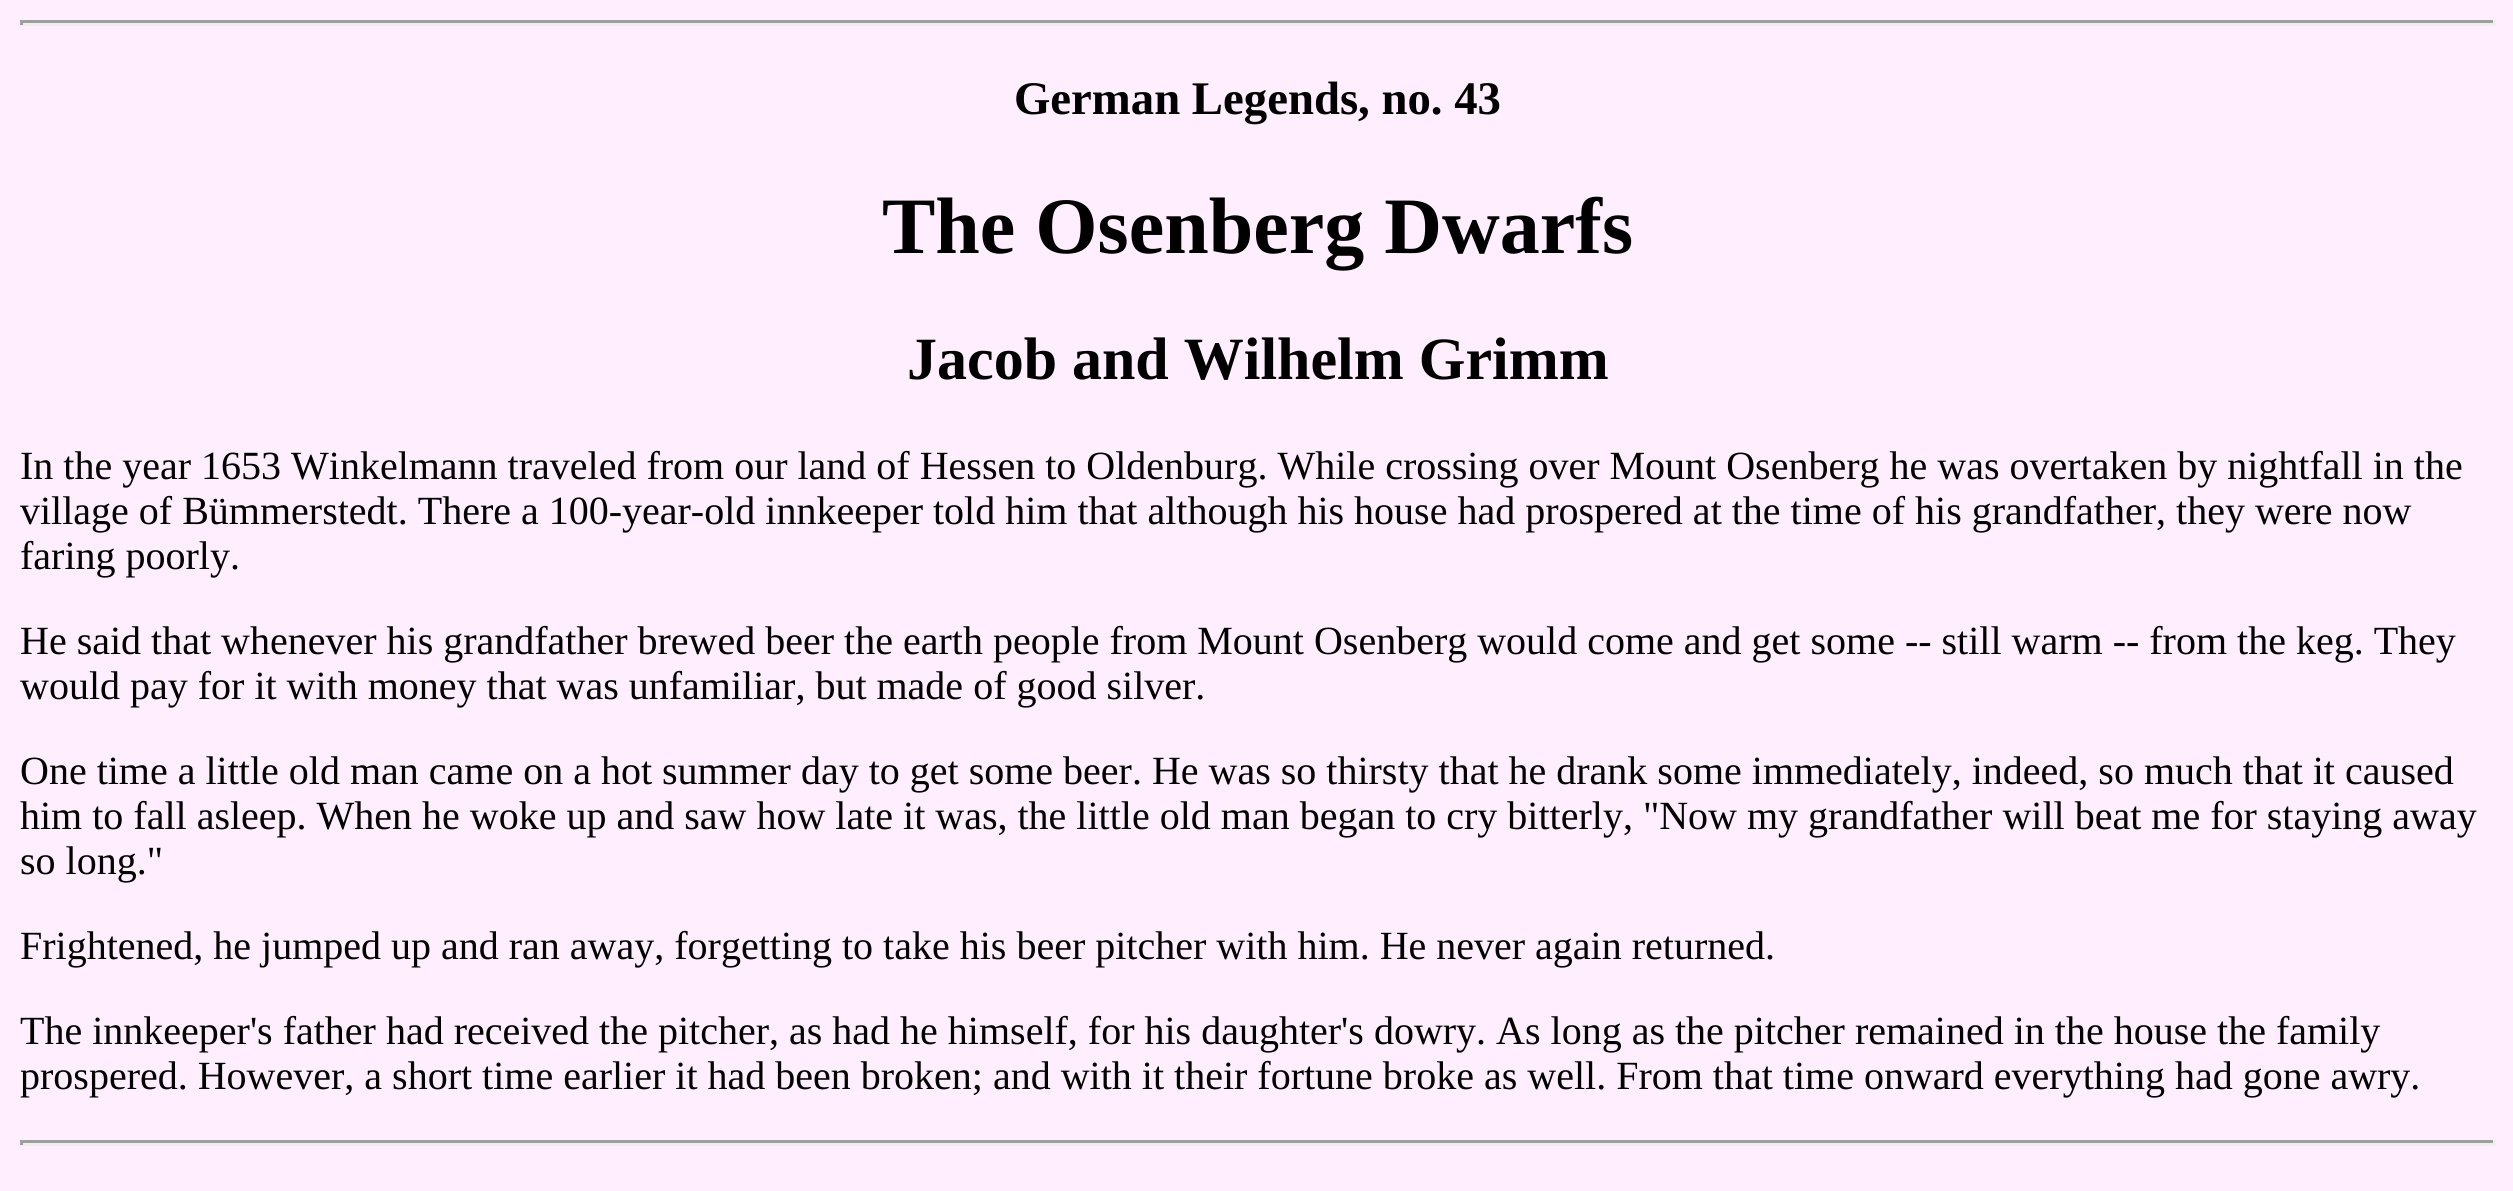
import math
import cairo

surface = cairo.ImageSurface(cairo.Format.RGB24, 2513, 1191)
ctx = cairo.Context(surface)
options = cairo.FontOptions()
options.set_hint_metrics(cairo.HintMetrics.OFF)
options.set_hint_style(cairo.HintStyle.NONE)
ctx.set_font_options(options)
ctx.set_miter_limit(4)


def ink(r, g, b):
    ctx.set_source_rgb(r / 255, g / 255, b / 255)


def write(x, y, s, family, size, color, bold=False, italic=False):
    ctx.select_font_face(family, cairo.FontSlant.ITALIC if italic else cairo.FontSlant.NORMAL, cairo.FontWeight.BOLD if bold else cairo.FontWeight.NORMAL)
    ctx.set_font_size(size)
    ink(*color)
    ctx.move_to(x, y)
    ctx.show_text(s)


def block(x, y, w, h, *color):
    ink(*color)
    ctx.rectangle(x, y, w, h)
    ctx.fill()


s1 = dict(family="Liberation Serif", size=46.75, color=(0, 0, 0), bold=True)
s2 = dict(family="Liberation Serif", size=80, color=(0, 0, 0), bold=True)
s3 = dict(family="Liberation Serif", size=60, color=(0, 0, 0), bold=True)
s4 = dict(family="Liberation Serif", size=40, color=(0, 0, 0))

ink(254, 238, 254)
ctx.paint()
block(20, 20, 2475, 3, 159, 159, 159)
block(2493, 20, 3, 5, 238, 238, 238)
block(20, 23, 2475, 3, 238, 238, 238)
block(20, 20, 3, 5, 159, 159, 159)
write(1014, 114, "German Legends, no. 43", **s1)
write(882, 253, "The Osenberg Dwarfs", **s2)
write(907, 379, "Jacob and Wilhelm Grimm", **s3)
write(20, 479, "In the year 1653 Winkelmann traveled from our land of Hessen to Oldenburg. While crossing over Mount Osenberg he was overtaken by nightfall in the", **s4)
write(20, 524, "village of Bümmerstedt. There a 100-year-old innkeeper told him that although his house had prospered at the time of his grandfather, they were now", **s4)
write(20, 569, "faring poorly.", **s4)
write(20, 654, "He said that whenever his grandfather brewed beer the earth people from Mount Osenberg would come and get some -- still warm -- from the keg. They", **s4)
write(20, 699, "would pay for it with money that was unfamiliar, but made of good silver.", **s4)
write(20, 784, "One time a little old man came on a hot summer day to get some beer. He was so thirsty that he drank some immediately, indeed, so much that it caused", **s4)
write(20, 829, "him to fall asleep. When he woke up and saw how late it was, the little old man began to cry bitterly, \"Now my grandfather will beat me for staying away", **s4)
write(20, 874, "so long.\"", **s4)
write(20, 959, "Frightened, he jumped up and ran away, forgetting to take his beer pitcher with him. He never again returned.", **s4)
write(20, 1044, "The innkeeper's father had received the pitcher, as had he himself, for his daughter's dowry. As long as the pitcher remained in the house the family", **s4)
write(20, 1089, "prospered. However, a short time earlier it had been broken; and with it their fortune broke as well. From that time onward everything had gone awry.", **s4)
block(20, 1140, 2475, 3, 159, 159, 159)
block(2493, 1140, 3, 5, 238, 238, 238)
block(20, 1143, 2475, 3, 238, 238, 238)
block(20, 1140, 3, 5, 159, 159, 159)
surface.write_to_png("screenshot.png")
